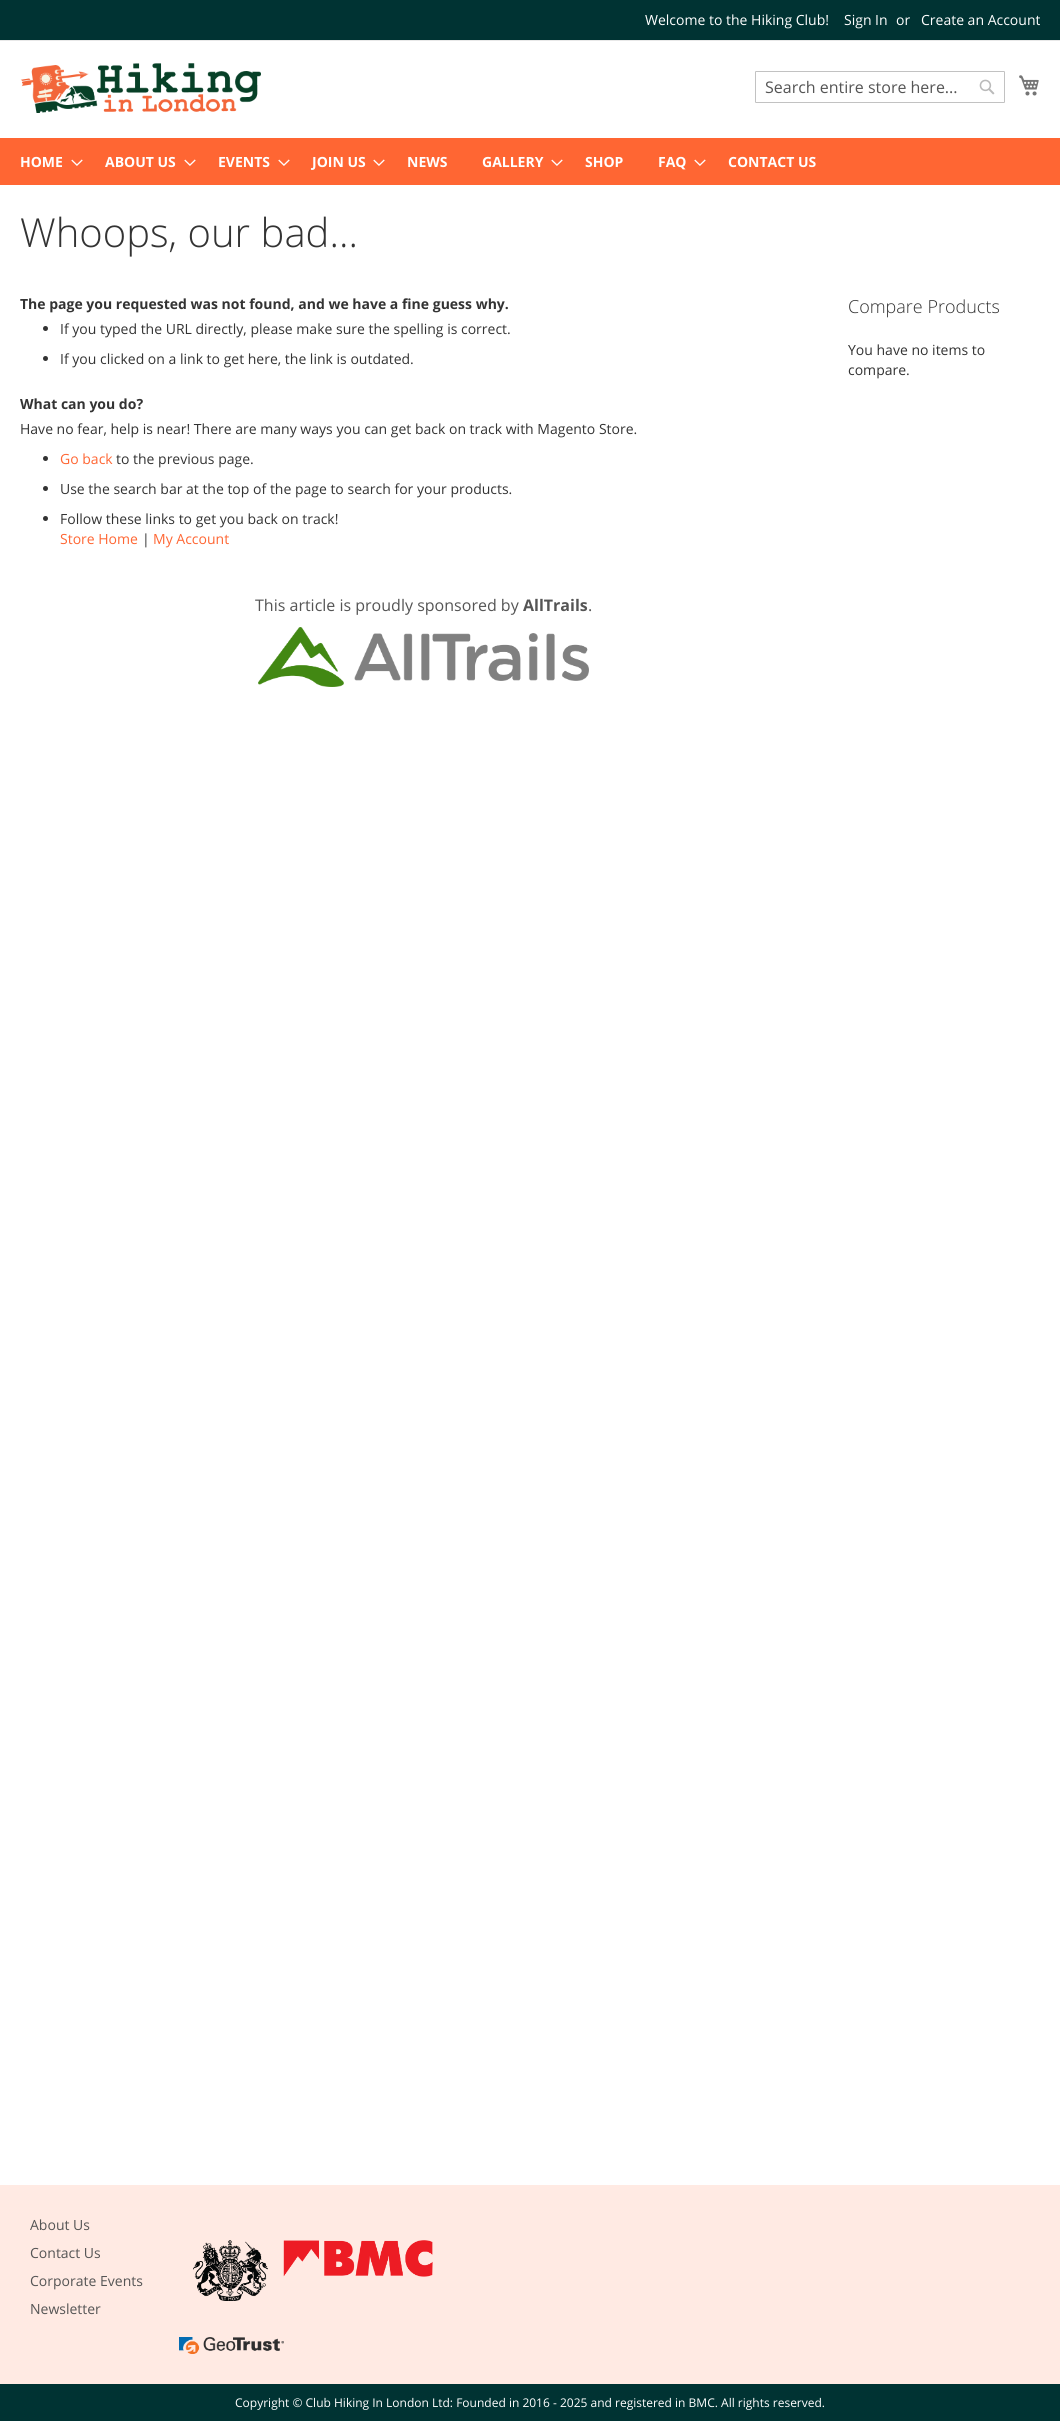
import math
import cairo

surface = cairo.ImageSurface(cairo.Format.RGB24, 1060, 2421)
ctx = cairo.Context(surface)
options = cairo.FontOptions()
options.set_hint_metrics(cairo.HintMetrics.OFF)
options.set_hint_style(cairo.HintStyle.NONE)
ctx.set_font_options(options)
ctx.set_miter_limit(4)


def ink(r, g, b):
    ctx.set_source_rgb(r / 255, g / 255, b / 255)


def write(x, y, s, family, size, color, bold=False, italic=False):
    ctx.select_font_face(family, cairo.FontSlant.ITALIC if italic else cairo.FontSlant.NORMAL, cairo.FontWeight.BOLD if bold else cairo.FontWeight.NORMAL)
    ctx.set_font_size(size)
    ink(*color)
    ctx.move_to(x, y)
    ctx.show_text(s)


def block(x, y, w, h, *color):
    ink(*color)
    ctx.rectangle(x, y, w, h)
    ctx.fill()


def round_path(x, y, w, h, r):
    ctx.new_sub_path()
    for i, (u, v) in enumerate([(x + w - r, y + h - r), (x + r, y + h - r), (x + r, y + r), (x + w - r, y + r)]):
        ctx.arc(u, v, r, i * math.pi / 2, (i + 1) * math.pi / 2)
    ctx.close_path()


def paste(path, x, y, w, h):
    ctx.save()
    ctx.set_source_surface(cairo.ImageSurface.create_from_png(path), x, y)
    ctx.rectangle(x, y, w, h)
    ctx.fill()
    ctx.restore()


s1 = dict(family="Open Sans", size=14, color=(255, 255, 255))
s2 = dict(family="Open Sans", size=16, color=(85, 85, 85))
s3 = dict(family="Open Sans", size=14, color=(255, 255, 255), bold=True)
s4 = dict(family="Open Sans Light", size=40, color=(51, 51, 51))
s5 = dict(family="Open Sans", size=14, color=(51, 51, 51), bold=True)
s6 = dict(family="Open Sans", size=14, color=(51, 51, 51))
s7 = dict(family="Open Sans", size=14, color=(255, 102, 51))
s8 = dict(family="Open Sans", size=16, color=(85, 85, 85), bold=True)
s9 = dict(family="Open Sans Light", size=18, color=(51, 51, 51))
s10 = dict(family="Open Sans", size=14, color=(85, 85, 85))
s11 = dict(family="Open Sans", size=12, color=(255, 255, 255))

ink(255, 255, 255)
ctx.paint()
block(0, 0, 1060, 40, 0, 51, 51)
block(0, 40, 1060, 1, 232, 232, 232)
write(645, 25, "Welcome to the Hiking Club!", **s1)
write(844, 25, "Sign In", **s1)
write(896, 25, "or", **s1)
write(921, 25, "Create an Account", **s1)
paste("pic1.png", 20, 63, 241, 50)
round_path(755.5, 71.5, 249, 31, 0.5)
ink(194, 194, 194)
ctx.set_line_width(1)
ctx.stroke()
write(765, 93, "Search entire store here...", **s2)
paste("pic2.png", 979, 79, 16, 16)
paste("pic3.png", 1019, 75, 20, 21)
block(0, 138, 1060, 47, 255, 102, 51)
write(20, 167, "HOME", **s3)
paste("pic4.png", 71, 159, 12, 7)
write(105, 167, "ABOUT US", **s3)
paste("pic4.png", 184, 159, 12, 7)
write(218, 167, "EVENTS", **s3)
paste("pic4.png", 278, 159, 12, 7)
write(312, 167, "JOIN US", **s3)
paste("pic4.png", 373, 159, 12, 7)
write(407, 167, "NEWS", **s3)
write(482, 167, "GALLERY", **s3)
paste("pic4.png", 551, 159, 12, 7)
write(585, 167, "SHOP", **s3)
write(658, 167, "FAQ", **s3)
paste("pic4.png", 694, 159, 12, 7)
write(728, 167, "CONTACT US", **s3)
write(20, 247, "Whoops, our bad...", **s4)
write(20, 309, "The page you requested was not found, and we have a fine guess why.", **s5)
ctx.new_path()
ctx.arc(45.5, 328.5, 2.5, 0, 2 * math.pi)
ctx.fill()
write(60, 334, "If you typed the URL directly, please make sure the spelling is correct.", **s6)
ctx.new_path()
ctx.arc(45.5, 358.5, 2.5, 0, 2 * math.pi)
ctx.fill()
write(60, 364, "If you clicked on a link to get here, the link is outdated.", **s6)
write(20, 409, "What can you do?", **s5)
write(20, 434, "Have no fear, help is near! There are many ways you can get back on track with Magento Store.", **s6)
ctx.new_path()
ctx.arc(45.5, 458.5, 2.5, 0, 2 * math.pi)
ctx.fill()
write(60, 464, "Go back", **s7)
write(116, 464, "to the previous page.", **s6)
ctx.new_path()
ctx.arc(45.5, 488.5, 2.5, 0, 2 * math.pi)
ctx.fill()
write(60, 494, "Use the search bar at the top of the page to search for your products.", **s6)
ctx.new_path()
ctx.arc(45.5, 518.5, 2.5, 0, 2 * math.pi)
ctx.fill()
write(60, 524, "Follow these links to get you back on track!", **s6)
write(60, 544, "Store Home", **s7)
write(142, 544, "|", **s6)
write(153, 544, "My Account", **s7)
write(255, 611, "This article is proudly sponsored by", **s2)
write(523, 611, "AllTrails", **s8)
write(588, 611, ".", **s2)
paste("pic5.png", 258, 627, 331, 60)
write(848, 313, "Compare Products", **s9)
write(848, 355, "You have no items to", **s6)
write(848, 375, "compare.", **s6)
block(0, 2185, 1060, 199, 255, 234, 227)
write(30, 2230, "About Us", **s10)
write(30, 2258, "Contact Us", **s10)
write(30, 2286, "Corporate Events", **s10)
write(30, 2314, "Newsletter", **s10)
paste("pic6.png", 193, 2240, 75, 61)
paste("pic7.png", 283, 2240, 150, 37)
paste("pic8.png", 179, 2337, 105, 17)
block(0, 2384, 1060, 37, 0, 51, 51)
write(235, 2407, "Copyright © Club Hiking In London Ltd: Founded in 2016 - 2025 and registered in BMC. All rights reserved.", **s11)
surface.write_to_png("screenshot.png")
